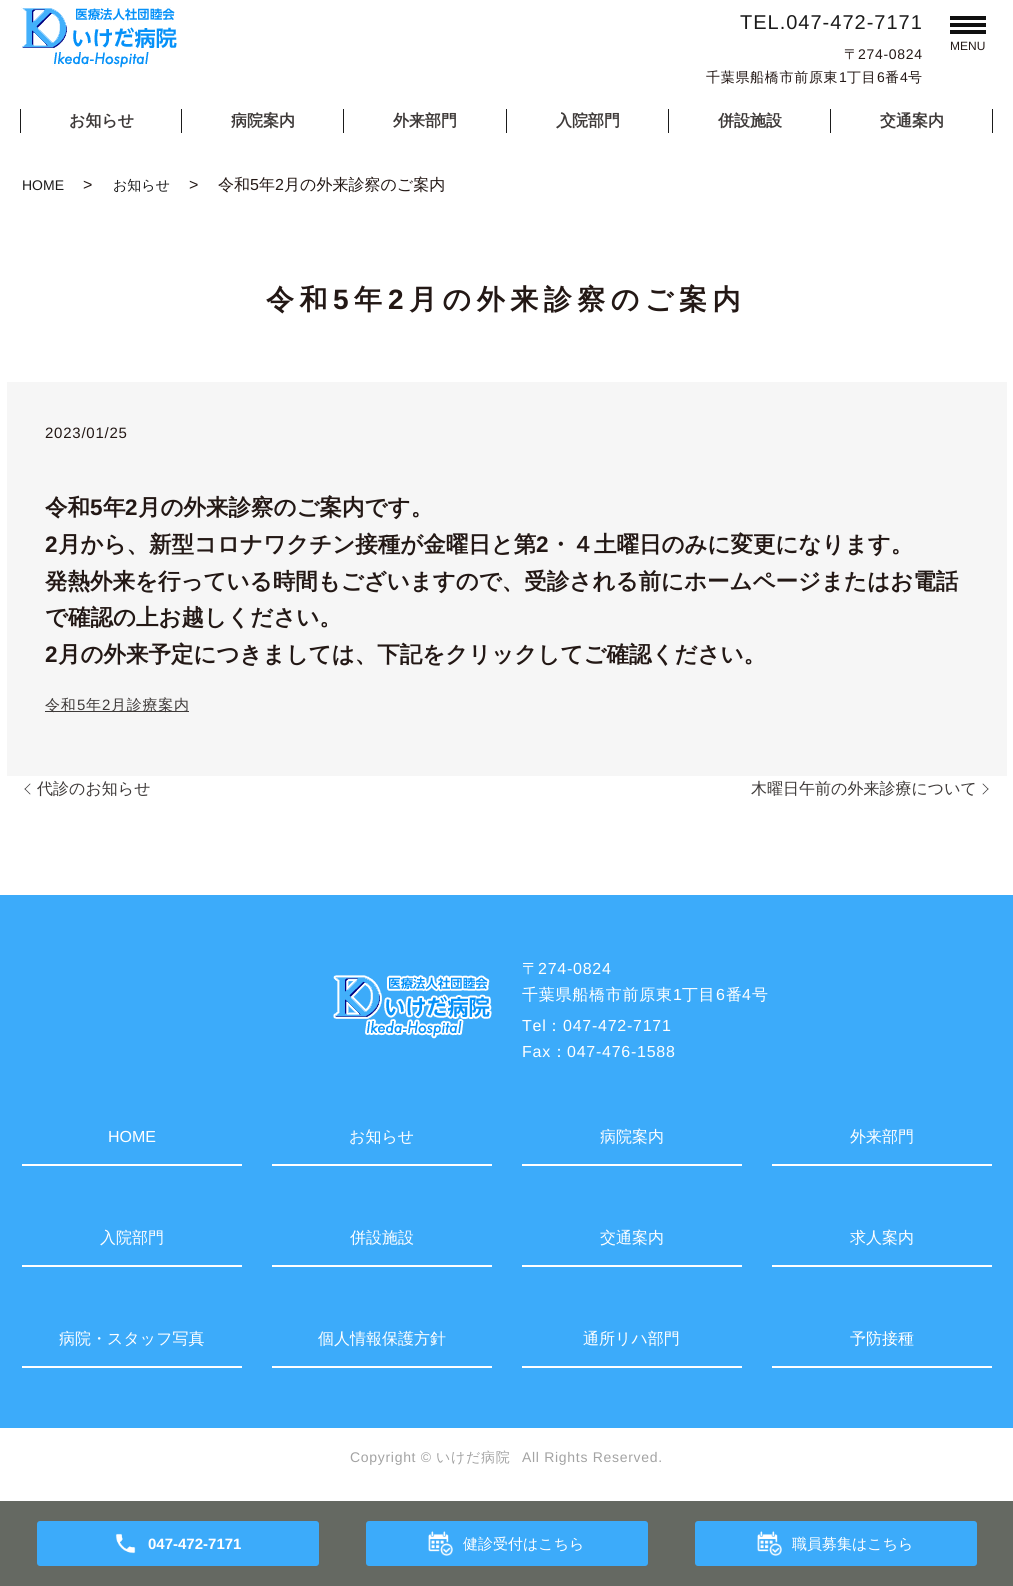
import math
import cairo

surface = cairo.ImageSurface(cairo.Format.RGB24, 1013, 1586)
ctx = cairo.Context(surface)
options = cairo.FontOptions()
options.set_hint_metrics(cairo.HintMetrics.OFF)
options.set_hint_style(cairo.HintStyle.NONE)
ctx.set_font_options(options)
ctx.set_miter_limit(4)


def ink(r, g, b):
    ctx.set_source_rgb(r / 255, g / 255, b / 255)


def write(x, y, s, family, size, color, bold=False, italic=False):
    ctx.select_font_face(family, cairo.FontSlant.ITALIC if italic else cairo.FontSlant.NORMAL, cairo.FontWeight.BOLD if bold else cairo.FontWeight.NORMAL)
    ctx.set_font_size(size)
    ink(*color)
    ctx.move_to(x, y)
    ctx.show_text(s)


def write_spaced(x, y, s, letter, word):
    ctx.move_to(x, y)
    for ch in s:
        ctx.show_text(ch)
        ctx.rel_move_to(letter + word * (ch == ' '), 0)


def block(x, y, w, h, *color):
    ink(*color)
    ctx.rectangle(x, y, w, h)
    ctx.fill()


def round_path(x, y, w, h, r):
    ctx.new_sub_path()
    for i, (u, v) in enumerate([(x + w - r, y + h - r), (x + r, y + h - r), (x + r, y + r), (x + w - r, y + r)]):
        ctx.arc(u, v, r, i * math.pi / 2, (i + 1) * math.pi / 2)
    ctx.close_path()


def paste(path, x, y, w, h):
    ctx.save()
    ctx.set_source_surface(cairo.ImageSurface.create_from_png(path), x, y)
    ctx.rectangle(x, y, w, h)
    ctx.fill()
    ctx.restore()


s1 = dict(family="Liberation Sans", size=12, color=(35, 24, 21))
s2 = dict(family="WenQuanYi Zen Hei", size=16, color=(62, 58, 57), bold=True)
s3 = dict(family="Liberation Sans", size=14, color=(27, 27, 27))
s4 = dict(family="Liberation Sans", size=16, color=(35, 24, 21))
s5 = dict(family="WenQuanYi Zen Hei Medium", size=14, color=(27, 27, 27))
s6 = dict(family="WenQuanYi Zen Hei Medium", size=16, color=(35, 24, 21))
s7 = dict(family="WenQuanYi Zen Hei", size=22.5, color=(35, 24, 21), bold=True)
s8 = dict(family="Liberation Sans", size=22.5, color=(35, 24, 21), bold=True)
s9 = dict(family="WenQuanYi Zen Hei Medium", size=16, color=(62, 58, 57))
s10 = dict(family="Liberation Sans", size=16, color=(255, 255, 255))
s11 = dict(family="WenQuanYi Zen Hei Medium", size=16, color=(255, 255, 255))
s12 = dict(family="Liberation Sans", size=15, color=(255, 255, 255), bold=True)
s13 = dict(family="WenQuanYi Zen Hei Medium", size=15, color=(255, 255, 255))

ink(255, 255, 255)
ctx.paint()
paste("pic1.png", 21, 7, 156, 61)
ctx.select_font_face("Liberation Sans")
ctx.set_font_size(20)
ink(27, 27, 27)
write_spaced(740, 29, "TEL.047-472-7171", 1, 0)
ctx.select_font_face("WenQuanYi Zen Hei Medium")
ctx.set_font_size(14)
ink(35, 24, 21)
write_spaced(844, 59, "〒", 0.7, 0)
ctx.select_font_face("Liberation Sans")
write_spaced(858, 59, "274-0824", 0.7, 0)
ctx.select_font_face("WenQuanYi Zen Hei Medium")
write_spaced(706, 82, "千葉県船橋市前原東", 0.7, 0)
ctx.select_font_face("Liberation Sans")
write_spaced(839, 82, "1", 0.7, 0)
ctx.select_font_face("WenQuanYi Zen Hei Medium")
write_spaced(847, 82, "丁目", 0.7, 0)
ctx.select_font_face("Liberation Sans")
write_spaced(877, 82, "6", 0.7, 0)
ctx.select_font_face("WenQuanYi Zen Hei Medium")
write_spaced(885, 82, "番", 0.7, 0)
ctx.select_font_face("Liberation Sans")
write_spaced(900, 82, "4", 0.7, 0)
ctx.select_font_face("WenQuanYi Zen Hei Medium")
write_spaced(908, 82, "号", 0.7, 0)
block(950, 16, 36, 4, 16, 16, 16)
block(950, 30, 36, 4, 16, 16, 16)
block(950, 23, 36, 4, 16, 16, 16)
write(950, 50, "MENU", **s1)
block(20, 109, 1, 24, 27, 27, 27)
write(69, 126, "お知らせ", **s2)
block(181, 109, 1, 24, 27, 27, 27)
write(231, 126, "病院案内", **s2)
block(343, 109, 1, 24, 27, 27, 27)
write(393, 126, "外来部門", **s2)
block(506, 109, 1, 24, 27, 27, 27)
write(556, 126, "入院部門", **s2)
block(668, 109, 1, 24, 27, 27, 27)
write(718, 126, "併設施設", **s2)
block(830, 109, 1, 24, 27, 27, 27)
write(880, 126, "交通案内", **s2)
block(992, 109, 1, 24, 27, 27, 27)
write(22, 190, "HOME", **s3)
write(83, 190, ">", **s4)
write(113, 190, "お知らせ", **s5)
write(189, 190, ">", **s4)
write(218, 190, "令和", **s6)
write(250, 190, "5", **s4)
write(259, 190, "年", **s6)
write(275, 190, "2", **s4)
write(284, 190, "月の外来診察のご案内", **s6)
ctx.select_font_face("WenQuanYi Zen Hei", cairo.FontSlant.NORMAL, cairo.FontWeight.BOLD)
ctx.set_font_size(28)
write_spaced(266, 309, "令和", 5.5, 0)
ctx.select_font_face("Liberation Sans", cairo.FontSlant.NORMAL, cairo.FontWeight.BOLD)
write_spaced(333, 309, "5", 5.5, 0)
ctx.select_font_face("WenQuanYi Zen Hei", cairo.FontSlant.NORMAL, cairo.FontWeight.BOLD)
write_spaced(354, 309, "年", 5.5, 0)
ctx.select_font_face("Liberation Sans", cairo.FontSlant.NORMAL, cairo.FontWeight.BOLD)
write_spaced(388, 309, "2", 5.5, 0)
ctx.select_font_face("WenQuanYi Zen Hei", cairo.FontSlant.NORMAL, cairo.FontWeight.BOLD)
write_spaced(409, 309, "月の外来診察のご案内", 5.5, 0)
block(7, 382, 1000, 394, 246, 246, 246)
ctx.select_font_face("Liberation Sans")
ctx.set_font_size(15)
ink(35, 24, 21)
write_spaced(45, 438, "2023/01/25", 0.75, 0)
write(45, 515, "令和", **s7)
write(90, 515, "5", **s8)
write(103, 515, "年", **s7)
write(125, 515, "2", **s8)
write(138, 515, "月の外来診察のご案内です。", **s7)
write(45, 552, "2", **s8)
write(58, 552, "月から、新型コロナワクチン接種が金曜日と第", **s7)
write(536, 552, "2", **s8)
write(549, 552, "・４土曜日のみに変更になります。", **s7)
write(45, 589, "発熱外来を行っている時間もございますので、受診される前にホームページまたはお電話", **s7)
write(45, 625, "で確認の上お越しください。", **s7)
write(45, 662, "2", **s8)
write(58, 662, "月の外来予定につきましては、下記をクリックしてご確認ください。", **s7)
block(45, 711, 144, 1, 62, 58, 57)
ctx.select_font_face("WenQuanYi Zen Hei Medium")
ctx.set_font_size(15)
write_spaced(45, 710, "令和", 0.75, 0)
ctx.select_font_face("Liberation Sans")
write_spaced(77, 710, "5", 0.75, 0)
ctx.select_font_face("WenQuanYi Zen Hei Medium")
write_spaced(86, 710, "年", 0.75, 0)
ctx.select_font_face("Liberation Sans")
write_spaced(102, 710, "2", 0.75, 0)
ctx.select_font_face("WenQuanYi Zen Hei Medium")
write_spaced(111, 710, "月診療案内", 0.75, 0)
ink(56, 54, 55)
ctx.new_path()
ctx.move_to(24.5, 789)
ctx.line_to(30, 783.5)
ctx.line_to(30.5, 784)
ctx.line_to(25, 789.5)
ctx.close_path()
ctx.fill()
write(37, 794, "代診のお知らせ", **s9)
ink(56, 54, 55)
ctx.new_path()
ctx.move_to(30, 794.5)
ctx.line_to(24.5, 789)
ctx.line_to(25, 788.5)
ctx.line_to(30.5, 794)
ctx.close_path()
ctx.fill()
write(751, 794, "木曜日午前の外来診療について", **s9)
ink(56, 54, 55)
ctx.new_path()
ctx.move_to(983, 783.5)
ctx.line_to(988.5, 789)
ctx.line_to(988, 789.5)
ctx.line_to(982.5, 784)
ctx.close_path()
ctx.fill()
ctx.new_path()
ctx.move_to(988.5, 789)
ctx.line_to(983, 794.5)
ctx.line_to(982.5, 794)
ctx.line_to(988, 788.5)
ctx.close_path()
ctx.fill()
block(0, 895, 1013, 533, 60, 171, 250)
paste("pic2.png", 333, 975, 159, 64)
ink(255, 255, 255)
write_spaced(522, 974, "〒", 0.75, 0)
ctx.select_font_face("Liberation Sans")
write_spaced(538, 974, "274-0824", 0.75, 0)
ctx.select_font_face("WenQuanYi Zen Hei Medium")
write_spaced(522, 1000, "千葉県船橋市前原東", 0.75, 0)
ctx.select_font_face("Liberation Sans")
write_spaced(673, 1000, "1", 0.75, 0)
ctx.select_font_face("WenQuanYi Zen Hei Medium")
write_spaced(682, 1000, "丁目", 0.75, 0)
ctx.select_font_face("Liberation Sans")
write_spaced(716, 1000, "6", 0.75, 0)
ctx.select_font_face("WenQuanYi Zen Hei Medium")
write_spaced(726, 1000, "番", 0.75, 0)
ctx.select_font_face("Liberation Sans")
write_spaced(742, 1000, "4", 0.75, 0)
ctx.select_font_face("WenQuanYi Zen Hei Medium")
write_spaced(752, 1000, "号", 0.75, 0)
ctx.select_font_face("Liberation Sans")
write_spaced(522, 1031, "Tel", 0.75, 0)
ctx.select_font_face("WenQuanYi Zen Hei Medium")
write_spaced(546, 1031, "：", 0.75, 0)
ctx.select_font_face("Liberation Sans")
write_spaced(563, 1031, "047-472-7171", 0.75, 0)
write_spaced(522, 1057, "Fax", 0.75, 0)
ctx.select_font_face("WenQuanYi Zen Hei Medium")
write_spaced(551, 1057, "：", 0.75, 0)
ctx.select_font_face("Liberation Sans")
write_spaced(567, 1057, "047-476-1588", 0.75, 0)
block(22, 1164, 220, 2, 255, 255, 255)
write(108, 1142, "HOME", **s10)
block(272, 1164, 220, 2, 255, 255, 255)
write(349, 1142, "お知らせ", **s11)
block(522, 1164, 220, 2, 255, 255, 255)
write(600, 1142, "病院案内", **s11)
block(772, 1164, 220, 2, 255, 255, 255)
write(850, 1142, "外来部門", **s11)
block(22, 1265, 220, 2, 255, 255, 255)
write(100, 1243, "入院部門", **s11)
block(272, 1265, 220, 2, 255, 255, 255)
write(350, 1243, "併設施設", **s11)
block(522, 1265, 220, 2, 255, 255, 255)
write(600, 1243, "交通案内", **s11)
block(772, 1265, 220, 2, 255, 255, 255)
write(850, 1243, "求人案内", **s11)
block(22, 1366, 220, 2, 255, 255, 255)
write(59, 1344, "病院・スタッフ写真", **s11)
block(272, 1366, 220, 2, 255, 255, 255)
write(318, 1344, "個人情報保護方針", **s11)
block(522, 1366, 220, 2, 255, 255, 255)
write(583, 1344, "通所リハ部門", **s11)
block(772, 1366, 220, 2, 255, 255, 255)
write(850, 1344, "予防接種", **s11)
ctx.select_font_face("Liberation Sans")
ctx.set_font_size(14)
ink(163, 163, 163)
write_spaced(350, 1462, "Copyright ©", 0.7, 0)
ctx.select_font_face("WenQuanYi Zen Hei Medium")
write_spaced(436, 1462, "いけだ病院", 0.7, 0)
ctx.select_font_face("Liberation Sans")
write_spaced(522, 1462, "All Rights Reserved.", 0.7, 0)
block(0, 1501, 1013, 85, 101, 105, 98)
ink(60, 171, 250)
round_path(37, 1521, 282, 45, 3)
ctx.fill()
paste("pic3.png", 115, 1533, 21, 21)
write(148, 1549, "047-472-7171", **s12)
ink(60, 171, 250)
round_path(366, 1521, 282, 45, 3)
ctx.fill()
paste("pic4.png", 428, 1531, 25, 25)
write(463, 1549, "健診受付はこちら", **s13)
ink(60, 171, 250)
round_path(695, 1521, 282, 45, 3)
ctx.fill()
paste("pic4.png", 757, 1531, 25, 25)
write(792, 1549, "職員募集はこちら", **s13)
surface.write_to_png("screenshot.png")
